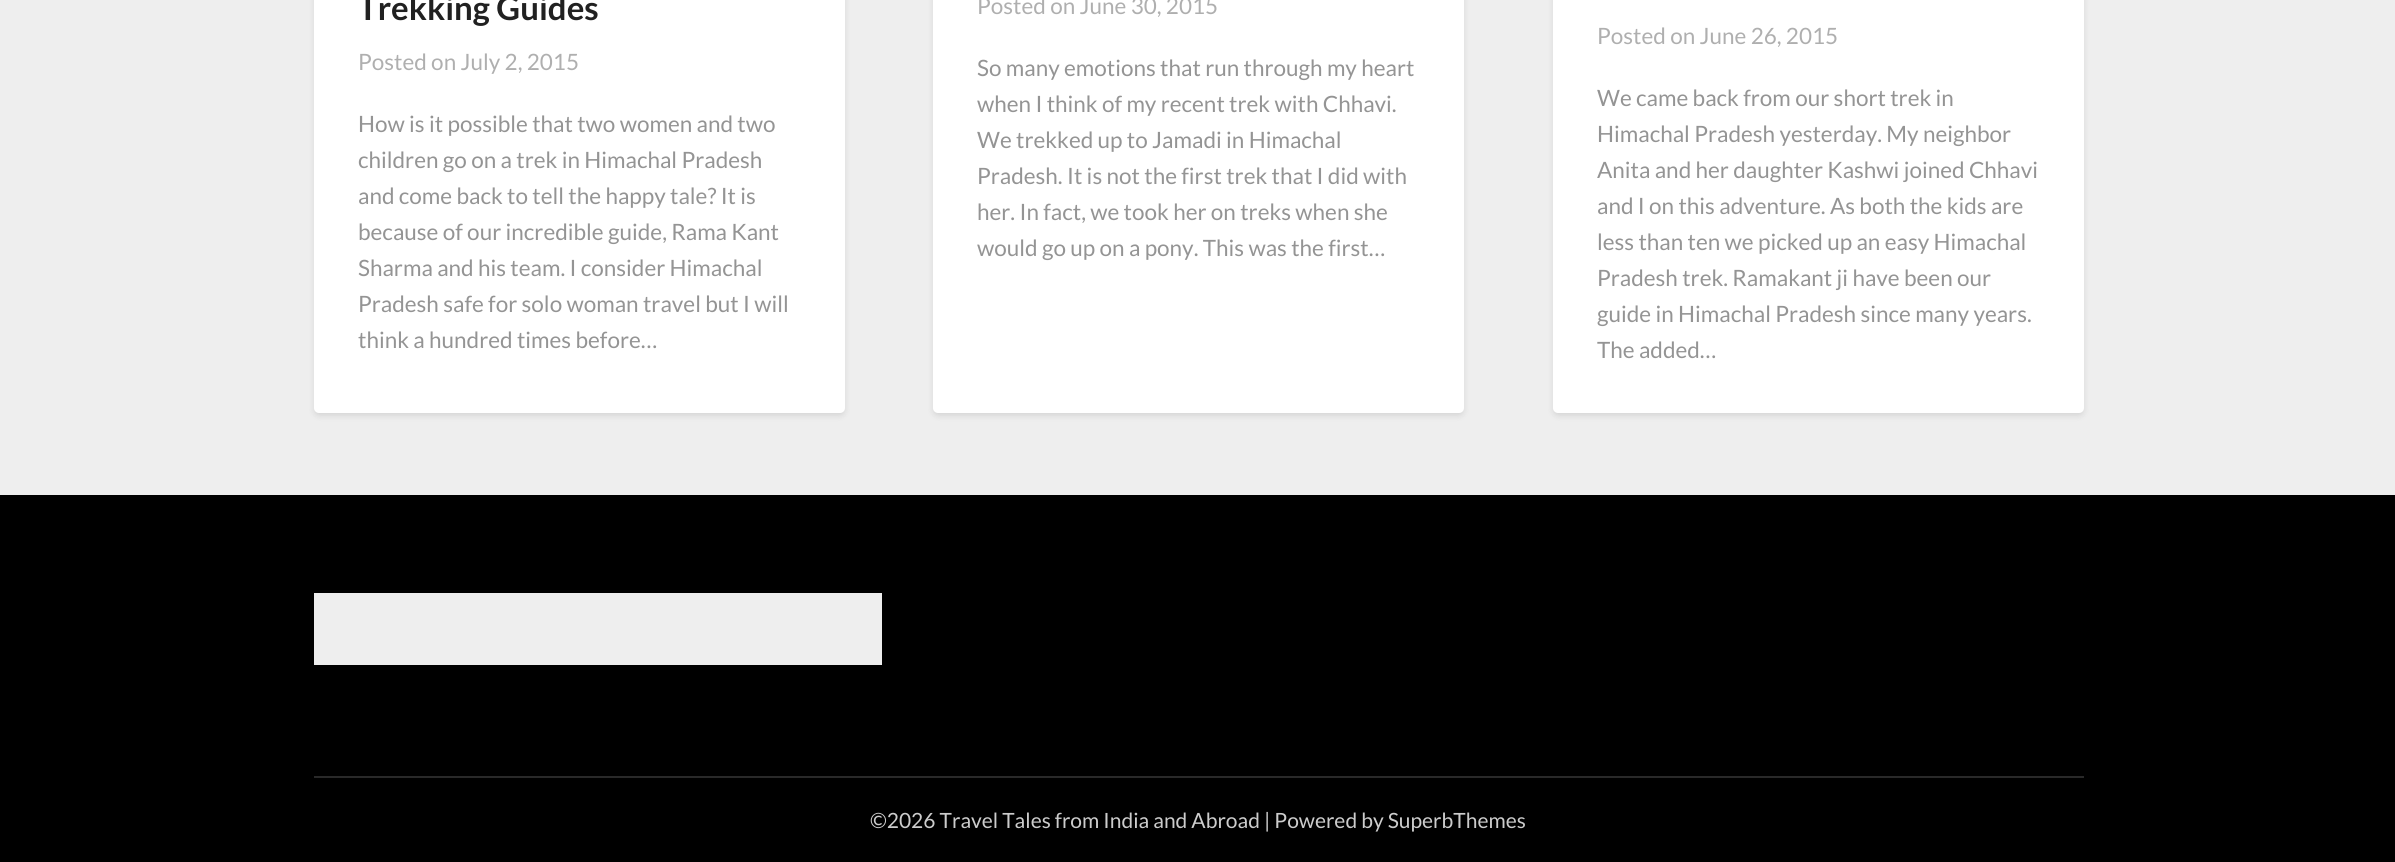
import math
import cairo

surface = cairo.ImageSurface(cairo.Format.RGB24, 2395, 862)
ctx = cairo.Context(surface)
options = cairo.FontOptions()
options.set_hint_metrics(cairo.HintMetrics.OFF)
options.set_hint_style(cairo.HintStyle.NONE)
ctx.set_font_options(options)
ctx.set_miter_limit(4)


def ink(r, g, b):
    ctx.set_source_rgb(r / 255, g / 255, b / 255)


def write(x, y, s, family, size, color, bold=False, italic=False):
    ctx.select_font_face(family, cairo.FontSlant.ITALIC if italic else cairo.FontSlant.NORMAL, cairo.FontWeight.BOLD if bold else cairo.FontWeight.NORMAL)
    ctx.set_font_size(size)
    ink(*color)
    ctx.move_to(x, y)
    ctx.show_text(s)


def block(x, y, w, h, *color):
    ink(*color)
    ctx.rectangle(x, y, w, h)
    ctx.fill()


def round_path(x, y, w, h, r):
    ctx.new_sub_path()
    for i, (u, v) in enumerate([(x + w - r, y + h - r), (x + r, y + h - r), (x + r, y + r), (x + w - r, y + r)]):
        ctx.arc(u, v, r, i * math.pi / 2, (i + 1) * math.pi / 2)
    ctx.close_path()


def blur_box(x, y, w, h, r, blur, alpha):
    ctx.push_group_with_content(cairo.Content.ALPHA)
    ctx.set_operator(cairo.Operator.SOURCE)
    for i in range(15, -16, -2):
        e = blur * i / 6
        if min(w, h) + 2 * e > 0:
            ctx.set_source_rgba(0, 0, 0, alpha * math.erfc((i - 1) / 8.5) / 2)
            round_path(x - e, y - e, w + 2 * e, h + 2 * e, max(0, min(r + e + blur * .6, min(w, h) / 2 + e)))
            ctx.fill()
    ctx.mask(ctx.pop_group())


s1 = dict(family="Lato", size=33, color=(33, 33, 33), bold=True)
s2 = dict(family="Lato", size=22.5, color=(175, 175, 175))
s3 = dict(family="Lato", size=22.5, color=(148, 148, 148))
s4 = dict(family="Lato", size=21, color=(204, 204, 204))

ink(238, 238, 238)
ctx.paint()
ink(0, 0, 0)
blur_box(314, -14, 531, 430, 5, 3, 0.1)
ink(255, 255, 255)
round_path(314, -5, 531, 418, 5)
ctx.fill()
write(358, 20, "Trekking Guides", **s1)
write(358, 70, "Posted on July 2, 2015", **s2)
write(358, 132, "How is it possible that two women and two", **s3)
write(358, 168, "children go on a trek in Himachal Pradesh", **s3)
write(358, 204, "and come back to tell the happy tale? It is", **s3)
write(358, 240, "because of our incredible guide, Rama Kant", **s3)
write(358, 276, "Sharma and his team. I consider Himachal", **s3)
write(358, 312, "Pradesh safe for solo woman travel but I will", **s3)
write(358, 348, "think a hundred times before…", **s3)
ink(0, 0, 0)
blur_box(933, -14, 531, 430, 5, 3, 0.1)
ink(255, 255, 255)
round_path(933, -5, 531, 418, 5)
ctx.fill()
write(977, 14, "Posted on June 30, 2015", **s2)
write(977, 76, "So many emotions that run through my heart", **s3)
write(977, 112, "when I think of my recent trek with Chhavi.", **s3)
write(977, 148, "We trekked up to Jamadi in Himachal", **s3)
write(977, 184, "Pradesh. It is not the first trek that I did with", **s3)
write(977, 220, "her. In fact, we took her on treks when she", **s3)
write(977, 256, "would go up on a pony. This was the first…", **s3)
ink(0, 0, 0)
blur_box(1553, -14, 531, 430, 5, 3, 0.1)
ink(255, 255, 255)
round_path(1553, -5, 531, 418, 5)
ctx.fill()
write(1597, 44, "Posted on June 26, 2015", **s2)
write(1597, 106, "We came back from our short trek in", **s3)
write(1597, 142, "Himachal Pradesh yesterday. My neighbor", **s3)
write(1597, 178, "Anita and her daughter Kashwi joined Chhavi", **s3)
write(1597, 214, "and I on this adventure. As both the kids are", **s3)
write(1597, 250, "less than ten we picked up an easy Himachal", **s3)
write(1597, 286, "Pradesh trek. Ramakant ji have been our", **s3)
write(1597, 322, "guide in Himachal Pradesh since many years.", **s3)
write(1597, 358, "The added…", **s3)
block(0, 495, 2395, 367, 0, 0, 0)
block(314, 593, 568, 72, 238, 238, 238)
block(314, 776, 1770, 2, 41, 41, 41)
write(870, 828, "©2026 Travel Tales from India and Abroad | Powered by SuperbThemes", **s4)
surface.write_to_png("screenshot.png")
